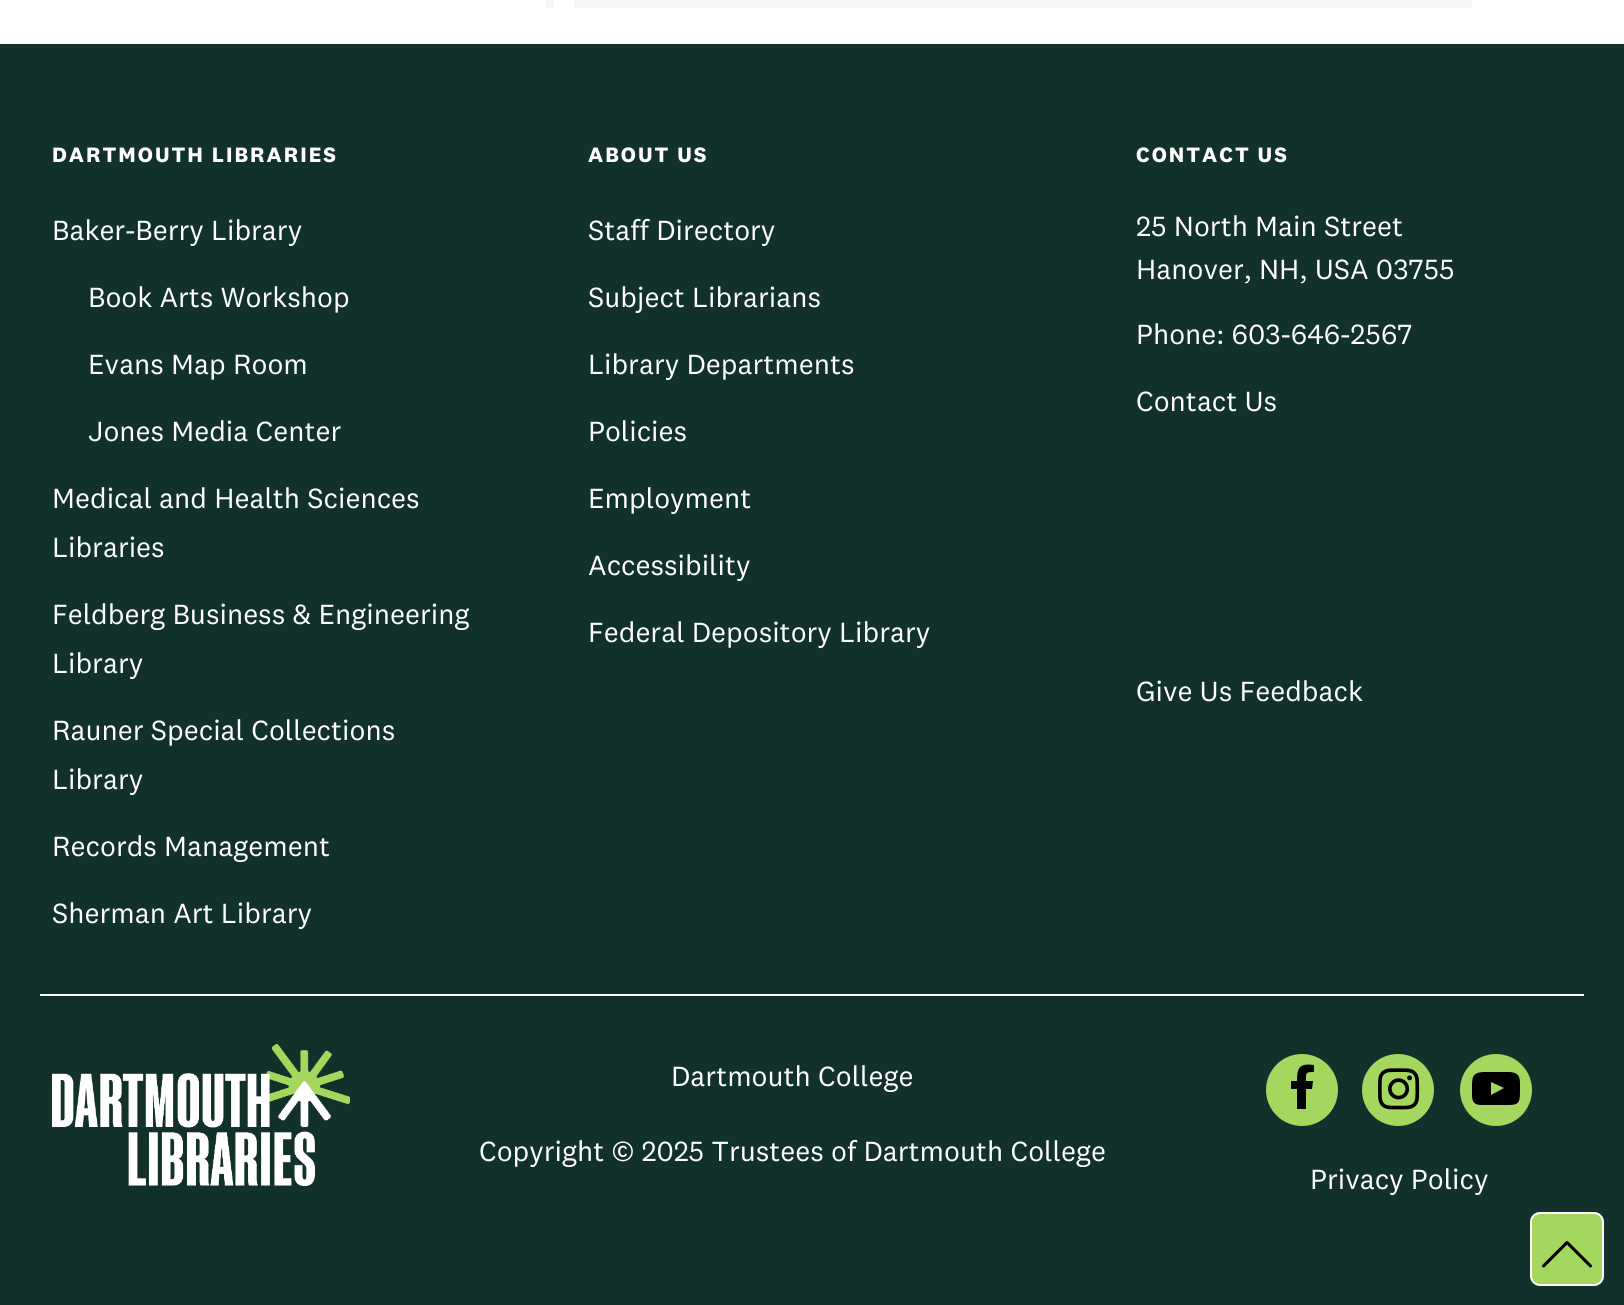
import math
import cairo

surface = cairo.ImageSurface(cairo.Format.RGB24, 1624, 1305)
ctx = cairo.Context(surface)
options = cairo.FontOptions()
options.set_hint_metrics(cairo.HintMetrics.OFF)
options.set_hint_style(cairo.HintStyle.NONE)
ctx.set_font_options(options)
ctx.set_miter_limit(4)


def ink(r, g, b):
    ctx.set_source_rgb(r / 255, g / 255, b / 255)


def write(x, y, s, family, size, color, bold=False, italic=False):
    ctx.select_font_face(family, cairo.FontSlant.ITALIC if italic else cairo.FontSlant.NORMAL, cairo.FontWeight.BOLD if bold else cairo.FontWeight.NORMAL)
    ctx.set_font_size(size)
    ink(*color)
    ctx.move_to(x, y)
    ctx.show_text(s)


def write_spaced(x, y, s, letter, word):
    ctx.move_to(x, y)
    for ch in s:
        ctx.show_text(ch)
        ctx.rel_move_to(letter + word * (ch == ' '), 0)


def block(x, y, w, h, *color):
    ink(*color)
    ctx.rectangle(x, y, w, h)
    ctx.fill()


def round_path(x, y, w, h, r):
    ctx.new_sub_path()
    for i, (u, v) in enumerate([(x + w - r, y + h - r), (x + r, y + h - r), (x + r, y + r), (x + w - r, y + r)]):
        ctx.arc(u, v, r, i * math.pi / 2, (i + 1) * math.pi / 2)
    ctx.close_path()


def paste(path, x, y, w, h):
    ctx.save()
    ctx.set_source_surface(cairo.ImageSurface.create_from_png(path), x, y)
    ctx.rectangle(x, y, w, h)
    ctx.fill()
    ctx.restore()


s1 = dict(family="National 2", size=28.8, color=(255, 255, 255))

ink(255, 255, 255)
ctx.paint()
block(546, 0, 8, 8, 245, 245, 245)
block(574, 0, 898, 8, 245, 245, 245)
block(0, 44, 1624, 1261, 18, 49, 43)
block(40, 994, 1544, 2, 255, 255, 255)
ctx.select_font_face("National 2", cairo.FontSlant.NORMAL, cairo.FontWeight.BOLD)
ctx.set_font_size(21.6)
write_spaced(52, 162, "DARTMOUTH LIBRARIES", 2, 0)
write(52, 240, "Baker-Berry Library", **s1)
write(88, 307, "Book Arts Workshop", **s1)
write(88, 374, "Evans Map Room", **s1)
write(88, 441, "Jones Media Center", **s1)
write(52, 508, "Medical and Health Sciences", **s1)
write(52, 557, "Libraries", **s1)
write(52, 624, "Feldberg Business & Engineering", **s1)
write(52, 673, "Library", **s1)
write(52, 740, "Rauner Special Collections", **s1)
write(52, 789, "Library", **s1)
write(52, 856, "Records Management", **s1)
write(52, 923, "Sherman Art Library", **s1)
ctx.select_font_face("National 2", cairo.FontSlant.NORMAL, cairo.FontWeight.BOLD)
ctx.set_font_size(21.6)
write_spaced(588, 162, "ABOUT US", 2, 0)
write(588, 240, "Staff Directory", **s1)
write(588, 307, "Subject Librarians", **s1)
write(588, 374, "Library Departments", **s1)
write(588, 441, "Policies", **s1)
write(588, 508, "Employment", **s1)
write(588, 575, "Accessibility", **s1)
write(588, 642, "Federal Depository Library", **s1)
ctx.select_font_face("National 2", cairo.FontSlant.NORMAL, cairo.FontWeight.BOLD)
ctx.set_font_size(21.6)
write_spaced(1136, 162, "CONTACT US", 2, 0)
write(1136, 236, "25 North Main Street", **s1)
write(1136, 279, "Hanover, NH, USA 03755", **s1)
write(1136, 344, "Phone: 603-646-2567", **s1)
write(1136, 411, "Contact Us", **s1)
write(1136, 701, "Give Us Feedback", **s1)
paste("pic1.png", 52, 1044, 298, 142)
write(671, 1086, "Dartmouth College", **s1)
write(479, 1161, "Copyright © 2025 Trustees of Dartmouth College", **s1)
ink(165, 215, 95)
ctx.new_path()
ctx.arc(1302, 1090, 36, 0, 2 * math.pi)
ctx.fill()
ink(0, 0, 0)
ctx.new_path()
ctx.move_to(1314, 1065)
ctx.line_to(1314, 1072)
ctx.curve_to(1305, 1072, 1306, 1073, 1306, 1081)
ctx.line_to(1313, 1081)
ctx.line_to(1312, 1089)
ctx.line_to(1306, 1089)
ctx.line_to(1306, 1109)
ctx.line_to(1297, 1109)
ctx.line_to(1297, 1089)
ctx.line_to(1291, 1089)
ctx.line_to(1291, 1081)
ctx.line_to(1297, 1081)
ctx.curve_to(1297, 1068, 1299, 1063, 1314, 1065)
ctx.close_path()
ctx.fill()
ink(165, 215, 95)
ctx.arc(1398, 1090, 36, 0, 2 * math.pi)
ctx.fill()
paste("pic2.png", 1378, 1068, 42, 42)
ctx.arc(1496, 1090, 36, 0, 2 * math.pi)
ctx.fill()
ink(0, 0, 0)
ctx.new_path()
ctx.move_to(1491, 1095)
ctx.line_to(1504, 1088)
ctx.line_to(1491, 1082)
ctx.close_path()
ctx.move_to(1496, 1072)
ctx.line_to(1510, 1072)
ctx.curve_to(1521, 1073, 1520, 1079, 1520, 1089)
ctx.curve_to(1520, 1101, 1520, 1105, 1509, 1105)
ctx.line_to(1482, 1105)
ctx.curve_to(1471, 1105, 1472, 1099, 1472, 1089)
ctx.curve_to(1472, 1077, 1472, 1073, 1483, 1072)
ctx.close_path()
ctx.fill()
write(1310, 1189, "Privacy Policy", **s1)
ink(165, 215, 95)
round_path(1531, 1213, 72, 72, 9)
ctx.fill_preserve()
ink(255, 255, 255)
ctx.stroke()
ctx.new_path()
ctx.move_to(1590.5, 1266)
ctx.line_to(1567, 1242.5)
ctx.line_to(1543.5, 1266)
ink(0, 0, 0)
ctx.set_line_width(3.1)
ctx.set_line_cap(cairo.LineCap.ROUND)
ctx.set_line_join(cairo.LineJoin.ROUND)
ctx.stroke()
surface.write_to_png("screenshot.png")
